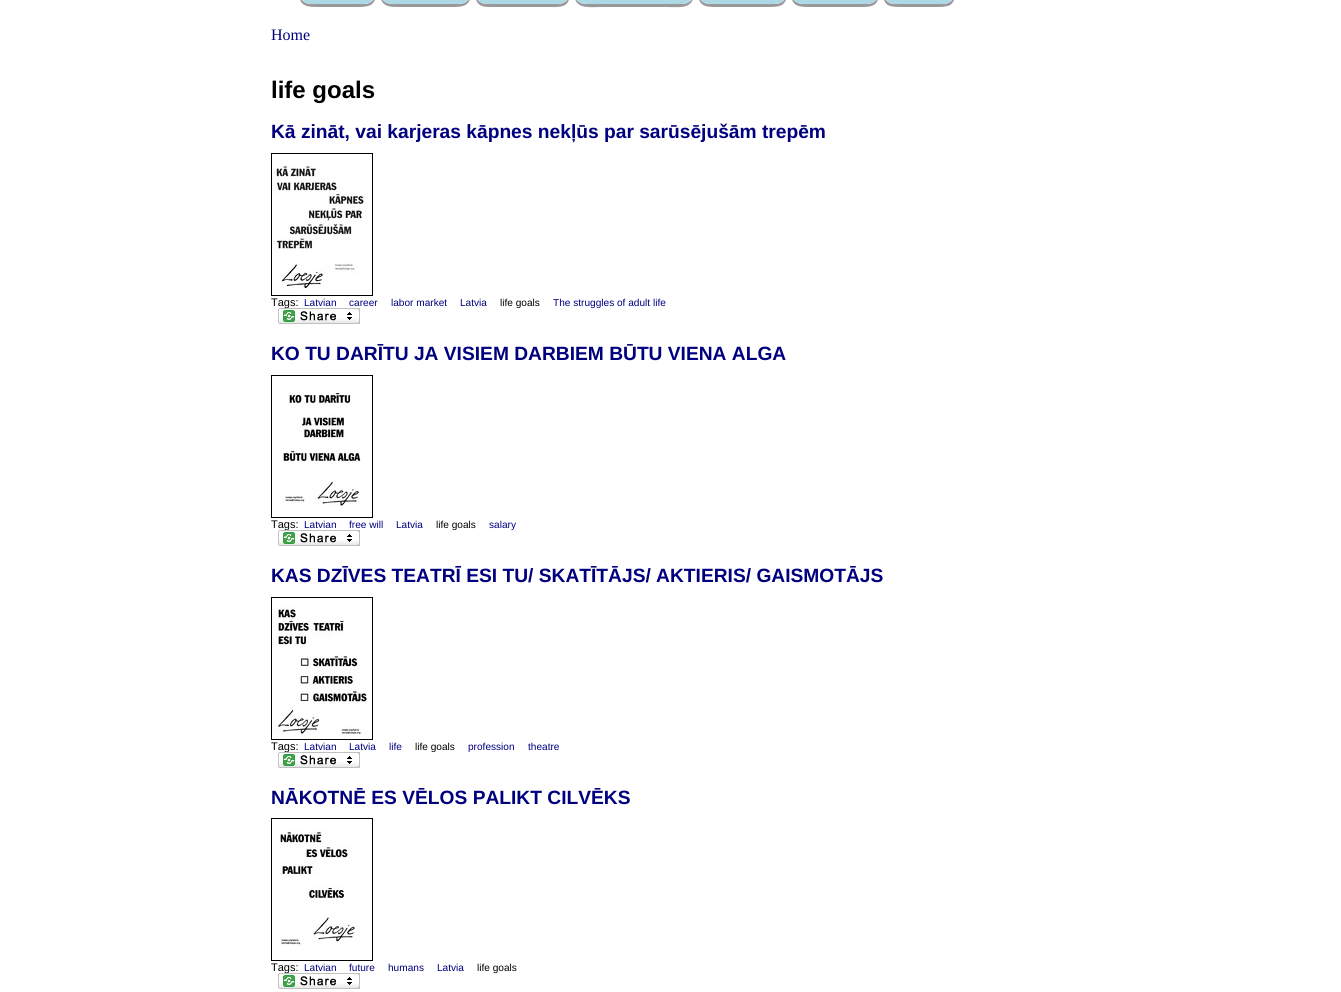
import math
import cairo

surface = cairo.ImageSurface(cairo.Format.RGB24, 1341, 992)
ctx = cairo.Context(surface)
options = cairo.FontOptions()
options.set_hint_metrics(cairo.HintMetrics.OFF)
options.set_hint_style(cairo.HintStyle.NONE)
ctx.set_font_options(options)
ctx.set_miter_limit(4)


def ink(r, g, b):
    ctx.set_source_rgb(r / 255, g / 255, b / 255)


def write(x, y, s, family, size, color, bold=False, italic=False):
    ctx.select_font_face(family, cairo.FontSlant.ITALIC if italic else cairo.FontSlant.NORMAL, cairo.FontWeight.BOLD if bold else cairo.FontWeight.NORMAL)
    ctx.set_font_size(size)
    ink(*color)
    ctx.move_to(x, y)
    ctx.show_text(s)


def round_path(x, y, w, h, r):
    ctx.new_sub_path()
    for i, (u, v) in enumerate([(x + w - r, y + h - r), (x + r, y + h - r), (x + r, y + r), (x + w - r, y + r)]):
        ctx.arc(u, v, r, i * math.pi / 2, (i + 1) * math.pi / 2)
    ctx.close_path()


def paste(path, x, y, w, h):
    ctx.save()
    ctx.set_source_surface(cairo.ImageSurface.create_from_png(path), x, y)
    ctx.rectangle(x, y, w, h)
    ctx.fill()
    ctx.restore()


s1 = dict(family="Liberation Serif", size=16, color=(0, 0, 127))
s2 = dict(family="Liberation Sans", size=24, color=(0, 0, 0), bold=True)
s3 = dict(family="Liberation Sans", size=19.2, color=(0, 0, 127), bold=True)
s4 = dict(family="Liberation Sans", size=11, color=(0, 0, 0))
s5 = dict(family="Liberation Sans", size=10.1, color=(0, 0, 127))
s6 = dict(family="Liberation Sans", size=10.1, color=(0, 0, 0))

ink(255, 255, 255)
ctx.paint()
ink(153, 153, 153)
ctx.new_path()
ctx.move_to(299, -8)
ctx.curve_to(299, 7, 307, 7, 320, 7)
ctx.line_to(355, 7)
ctx.curve_to(368, 7, 376, 7, 376, -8)
ctx.curve_to(376, -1, 371, 4, 364, 4)
ctx.line_to(311, 4)
ctx.curve_to(304, 4, 299, -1, 299, -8)
ctx.close_path()
ctx.fill()
ink(173, 216, 230)
round_path(299, -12, 77, 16, 12)
ctx.fill()
ink(153, 153, 153)
ctx.new_path()
ctx.move_to(380, -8)
ctx.curve_to(380, 8, 390, 7, 403, 7)
ctx.line_to(448, 7)
ctx.curve_to(461, 7, 471, 8, 471, -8)
ctx.curve_to(471, -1, 466, 4, 459, 4)
ctx.line_to(392, 4)
ctx.curve_to(385, 4, 380, -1, 380, -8)
ctx.close_path()
ctx.fill()
ink(173, 216, 230)
round_path(380, -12, 91, 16, 12)
ctx.fill()
ink(153, 153, 153)
ctx.new_path()
ctx.move_to(475, -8)
ctx.curve_to(475, 9, 485, 7, 499, 7)
ctx.line_to(546, 7)
ctx.curve_to(560, 7, 570, 9, 570, -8)
ctx.curve_to(570, -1, 565, 4, 558, 4)
ctx.line_to(487, 4)
ctx.curve_to(480, 4, 475, -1, 475, -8)
ctx.close_path()
ctx.fill()
ink(173, 216, 230)
round_path(475, -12, 95, 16, 12)
ctx.fill()
ink(153, 153, 153)
ctx.new_path()
ctx.move_to(574, -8)
ctx.curve_to(574, 10, 588, 7, 602, 7)
ctx.line_to(666, 7)
ctx.curve_to(680, 7, 694, 10, 694, -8)
ctx.curve_to(694, -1, 689, 4, 682, 4)
ctx.line_to(586, 4)
ctx.curve_to(579, 4, 574, -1, 574, -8)
ctx.close_path()
ctx.fill()
ink(173, 216, 230)
round_path(574, -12, 120, 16, 12)
ctx.fill()
ink(153, 153, 153)
ctx.new_path()
ctx.move_to(698, -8)
ctx.curve_to(698, 8, 707, 7, 721, 7)
ctx.line_to(764, 7)
ctx.curve_to(778, 7, 787, 8, 787, -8)
ctx.curve_to(787, -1, 782, 4, 775, 4)
ctx.line_to(710, 4)
ctx.curve_to(703, 4, 698, -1, 698, -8)
ctx.close_path()
ctx.fill()
ink(173, 216, 230)
round_path(698, -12, 89, 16, 12)
ctx.fill()
ink(153, 153, 153)
ctx.new_path()
ctx.move_to(791, -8)
ctx.curve_to(791, 8, 800, 7, 814, 7)
ctx.line_to(856, 7)
ctx.curve_to(870, 7, 879, 8, 879, -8)
ctx.curve_to(879, -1, 874, 4, 867, 4)
ctx.line_to(803, 4)
ctx.curve_to(796, 4, 791, -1, 791, -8)
ctx.close_path()
ctx.fill()
ink(173, 216, 230)
round_path(791, -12, 88, 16, 12)
ctx.fill()
ink(153, 153, 153)
ctx.new_path()
ctx.move_to(883, -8)
ctx.curve_to(883, 7, 890, 7, 903, 7)
ctx.line_to(935, 7)
ctx.curve_to(948, 7, 955, 7, 955, -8)
ctx.curve_to(955, -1, 950, 4, 943, 4)
ctx.line_to(895, 4)
ctx.curve_to(888, 4, 883, -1, 883, -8)
ctx.close_path()
ctx.fill()
ink(173, 216, 230)
round_path(883, -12, 72, 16, 12)
ctx.fill()
write(271, 40, "Home", **s1)
write(271, 98, "life goals", **s2)
write(271, 138, "Kā zināt, vai karjeras kāpnes nekļūs par sarūsējušām trepēm", **s3)
ctx.rectangle(271.5, 153.5, 101, 142)
ink(0, 0, 0)
ctx.set_line_width(1)
ctx.stroke()
paste("pic1.png", 272, 162, 96, 127)
write(271, 306, "Tags:", **s4)
write(304, 306, "Latvian", **s5)
write(349, 306, "career", **s5)
write(391, 306, "labor market", **s5)
write(460, 306, "Latvia", **s5)
write(500, 306, "life goals", **s6)
write(553, 306, "The struggles of adult life", **s5)
paste("pic2.png", 278, 308, 82, 16)
write(271, 360, "KO TU DARĪTU JA VISIEM DARBIEM BŪTU VIENA ALGA", **s3)
ctx.rectangle(271.5, 375.5, 101, 142)
ink(0, 0, 0)
ctx.stroke()
paste("pic3.png", 280, 392, 82, 116)
write(271, 528, "Tags:", **s4)
write(304, 528, "Latvian", **s5)
write(349, 528, "free will", **s5)
write(396, 528, "Latvia", **s5)
write(436, 528, "life goals", **s6)
write(489, 528, "salary", **s5)
paste("pic2.png", 278, 530, 82, 16)
write(271, 582, "KAS DZĪVES TEATRĪ ESI TU/ SKATĪTĀJS/ AKTIERIS/ GAISMOTĀJS", **s3)
ctx.rectangle(271.5, 597.5, 101, 142)
ink(0, 0, 0)
ctx.stroke()
paste("pic4.png", 272, 606, 95, 129)
write(271, 750, "Tags:", **s4)
write(304, 750, "Latvian", **s5)
write(349, 750, "Latvia", **s5)
write(389, 750, "life", **s5)
write(415, 750, "life goals", **s6)
write(468, 750, "profession", **s5)
write(528, 750, "theatre", **s5)
paste("pic2.png", 278, 752, 82, 16)
write(271, 804, "NĀKOTNĒ ES VĒLOS PALIKT CILVĒKS", **s3)
ctx.rectangle(271.5, 818.5, 101, 142)
ink(0, 0, 0)
ctx.stroke()
paste("pic5.png", 280, 827, 79, 119)
write(271, 971, "Tags:", **s4)
write(304, 971, "Latvian", **s5)
write(349, 971, "future", **s5)
write(388, 971, "humans", **s5)
write(437, 971, "Latvia", **s5)
write(477, 971, "life goals", **s6)
paste("pic2.png", 278, 973, 82, 16)
surface.write_to_png("screenshot.png")
